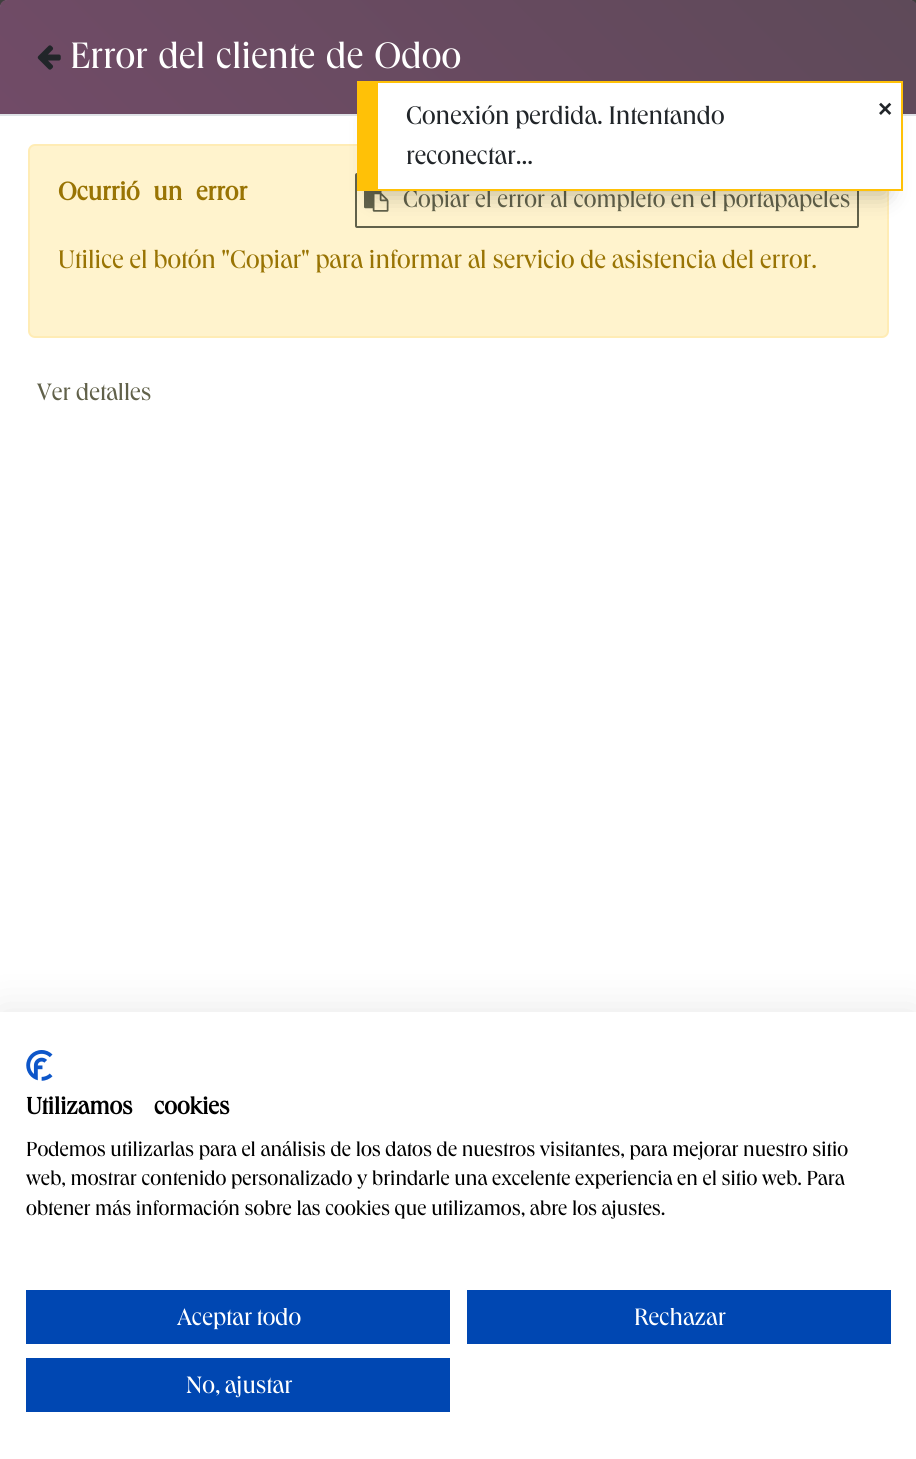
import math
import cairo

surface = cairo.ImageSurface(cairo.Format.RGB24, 916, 1459)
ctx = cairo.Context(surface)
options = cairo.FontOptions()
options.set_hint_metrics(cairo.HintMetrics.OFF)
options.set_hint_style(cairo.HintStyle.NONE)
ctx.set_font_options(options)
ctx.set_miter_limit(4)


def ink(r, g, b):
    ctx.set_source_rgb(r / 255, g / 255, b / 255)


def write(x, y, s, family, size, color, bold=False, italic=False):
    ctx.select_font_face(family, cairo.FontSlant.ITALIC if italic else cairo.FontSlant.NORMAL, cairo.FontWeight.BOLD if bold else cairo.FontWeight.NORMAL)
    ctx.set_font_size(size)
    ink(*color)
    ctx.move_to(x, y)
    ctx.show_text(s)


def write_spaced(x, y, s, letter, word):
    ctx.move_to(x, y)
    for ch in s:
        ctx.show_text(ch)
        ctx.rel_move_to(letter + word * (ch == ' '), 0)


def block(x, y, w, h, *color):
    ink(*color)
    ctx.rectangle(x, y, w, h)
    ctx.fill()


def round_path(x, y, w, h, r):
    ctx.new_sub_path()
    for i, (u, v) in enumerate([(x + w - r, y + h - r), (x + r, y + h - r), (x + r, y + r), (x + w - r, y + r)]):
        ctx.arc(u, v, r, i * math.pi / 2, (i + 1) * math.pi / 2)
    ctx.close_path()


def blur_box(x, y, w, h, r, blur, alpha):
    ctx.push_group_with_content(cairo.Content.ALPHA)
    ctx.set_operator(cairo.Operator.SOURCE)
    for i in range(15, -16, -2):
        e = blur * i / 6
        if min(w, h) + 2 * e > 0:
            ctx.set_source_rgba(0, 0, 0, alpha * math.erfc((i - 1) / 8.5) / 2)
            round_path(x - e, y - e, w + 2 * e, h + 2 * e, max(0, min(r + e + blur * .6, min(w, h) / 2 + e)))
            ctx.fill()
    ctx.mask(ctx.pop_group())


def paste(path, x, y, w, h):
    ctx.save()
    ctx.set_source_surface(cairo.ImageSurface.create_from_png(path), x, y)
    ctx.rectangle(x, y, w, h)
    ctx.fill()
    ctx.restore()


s1 = dict(family="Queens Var", size=24.5, color=(97, 97, 74))
s2 = dict(family="Queens Var", size=26.25, color=(153, 116, 4))
s3 = dict(family="Queens Var", size=26.25, color=(33, 37, 41))
s4 = dict(family="Liberation Sans", size=24.5, color=(33, 37, 41), bold=True)
s5 = dict(family="Queens Var", size=21, color=(0, 0, 0))
s6 = dict(family="Queens Var", size=24.5, color=(255, 255, 255))

ink(63, 63, 62)
ctx.paint()
ink(255, 255, 255)
round_path(0, 0, 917, 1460, 9)
ctx.fill()
gradient = cairo.LinearGradient(201, 315, 716, -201)
gradient.add_color_stop_rgba(0, 0.443, 0.294, 0.404, 1)
gradient.add_color_stop_rgba(1, 0.369, 0.29, 0.349, 1)
ctx.set_source(gradient)
ctx.new_path()
ctx.move_to(7, 0)
ctx.line_to(910, 0)
ctx.curve_to(914, 0, 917, 3, 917, 7)
ctx.line_to(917, 114)
ctx.line_to(0, 114)
ctx.line_to(0, 7)
ctx.curve_to(0, 3, 3, 0, 7, 0)
ctx.close_path()
ctx.fill()
block(0, 114, 916, 2, 222, 226, 230)
paste("pic1.png", 37, 45, 24, 25)
ctx.select_font_face("Queens Var")
ctx.set_font_size(38)
ink(255, 255, 255)
write_spaced(70, 68, "Error del cliente de Odoo", 0, 2.5)
ink(255, 243, 205)
round_path(29, 145, 859, 192, 6)
ctx.fill_preserve()
ink(255, 236, 181)
ctx.stroke()
ctx.select_font_face("Queens Var", cairo.FontSlant.NORMAL, cairo.FontWeight.BOLD)
ctx.set_font_size(26.25)
ink(153, 116, 4)
write_spaced(58, 200, "Ocurrió un error", 0, 8)
round_path(356, 174, 502, 53, 1)
ink(97, 97, 74)
ctx.stroke()
paste("pic2.png", 364, 191, 25, 21)
write(403, 207, "Copiar el error al completo en el portapapeles", **s1)
write(58, 268, "Utilice el botón \"Copiar\" para informar al servicio de asistencia del error.", **s2)
write(37, 400, "Ver detalles", **s1)
ink(0, 0, 0)
blur_box(375, 119, 511, 75, 0, 12, 0.25)
block(378, 83, 523, 106, 255, 255, 255)
block(378, 81, 525, 2, 255, 193, 7)
block(901, 81, 2, 110, 255, 193, 7)
block(378, 189, 525, 2, 255, 193, 7)
block(357, 81, 21, 110, 255, 193, 7)
write(406, 124, "Conexión perdida. Intentando", **s3)
write(406, 164, "reconectar...", **s3)
write(878, 117, "×", **s4)
ink(0, 0, 0)
blur_box(0, 1012, 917, 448, 0, 21, 0.1)
block(0, 1012, 916, 447, 255, 255, 255)
paste("pic3.png", 26, 1050, 27, 31)
ctx.select_font_face("Queens Var", cairo.FontSlant.NORMAL, cairo.FontWeight.BOLD)
ink(0, 0, 0)
write_spaced(26, 1114, "Utilizamos cookies", 0, 16)
write(26, 1156, "Podemos utilizarlas para el análisis de los datos de nuestros visitantes, para mejorar nuestro sitio", **s5)
write(26, 1185, "web, mostrar contenido personalizado y brindarle una excelente experiencia en el sitio web. Para", **s5)
write(26, 1215, "obtener más información sobre las cookies que utilizamos, abre los ajustes.", **s5)
block(26, 1290, 424, 54, 0, 71, 178)
ctx.set_font_size(24.5)
ink(255, 255, 255)
write_spaced(177, 1325, "Aceptar todo", 0, -1)
block(467, 1290, 424, 54, 0, 71, 178)
write(634, 1325, "Rechazar", **s6)
block(26, 1358, 424, 54, 0, 71, 178)
ink(255, 255, 255)
write_spaced(186, 1393, "No, ajustar", 0, -1)
surface.write_to_png("screenshot.png")
